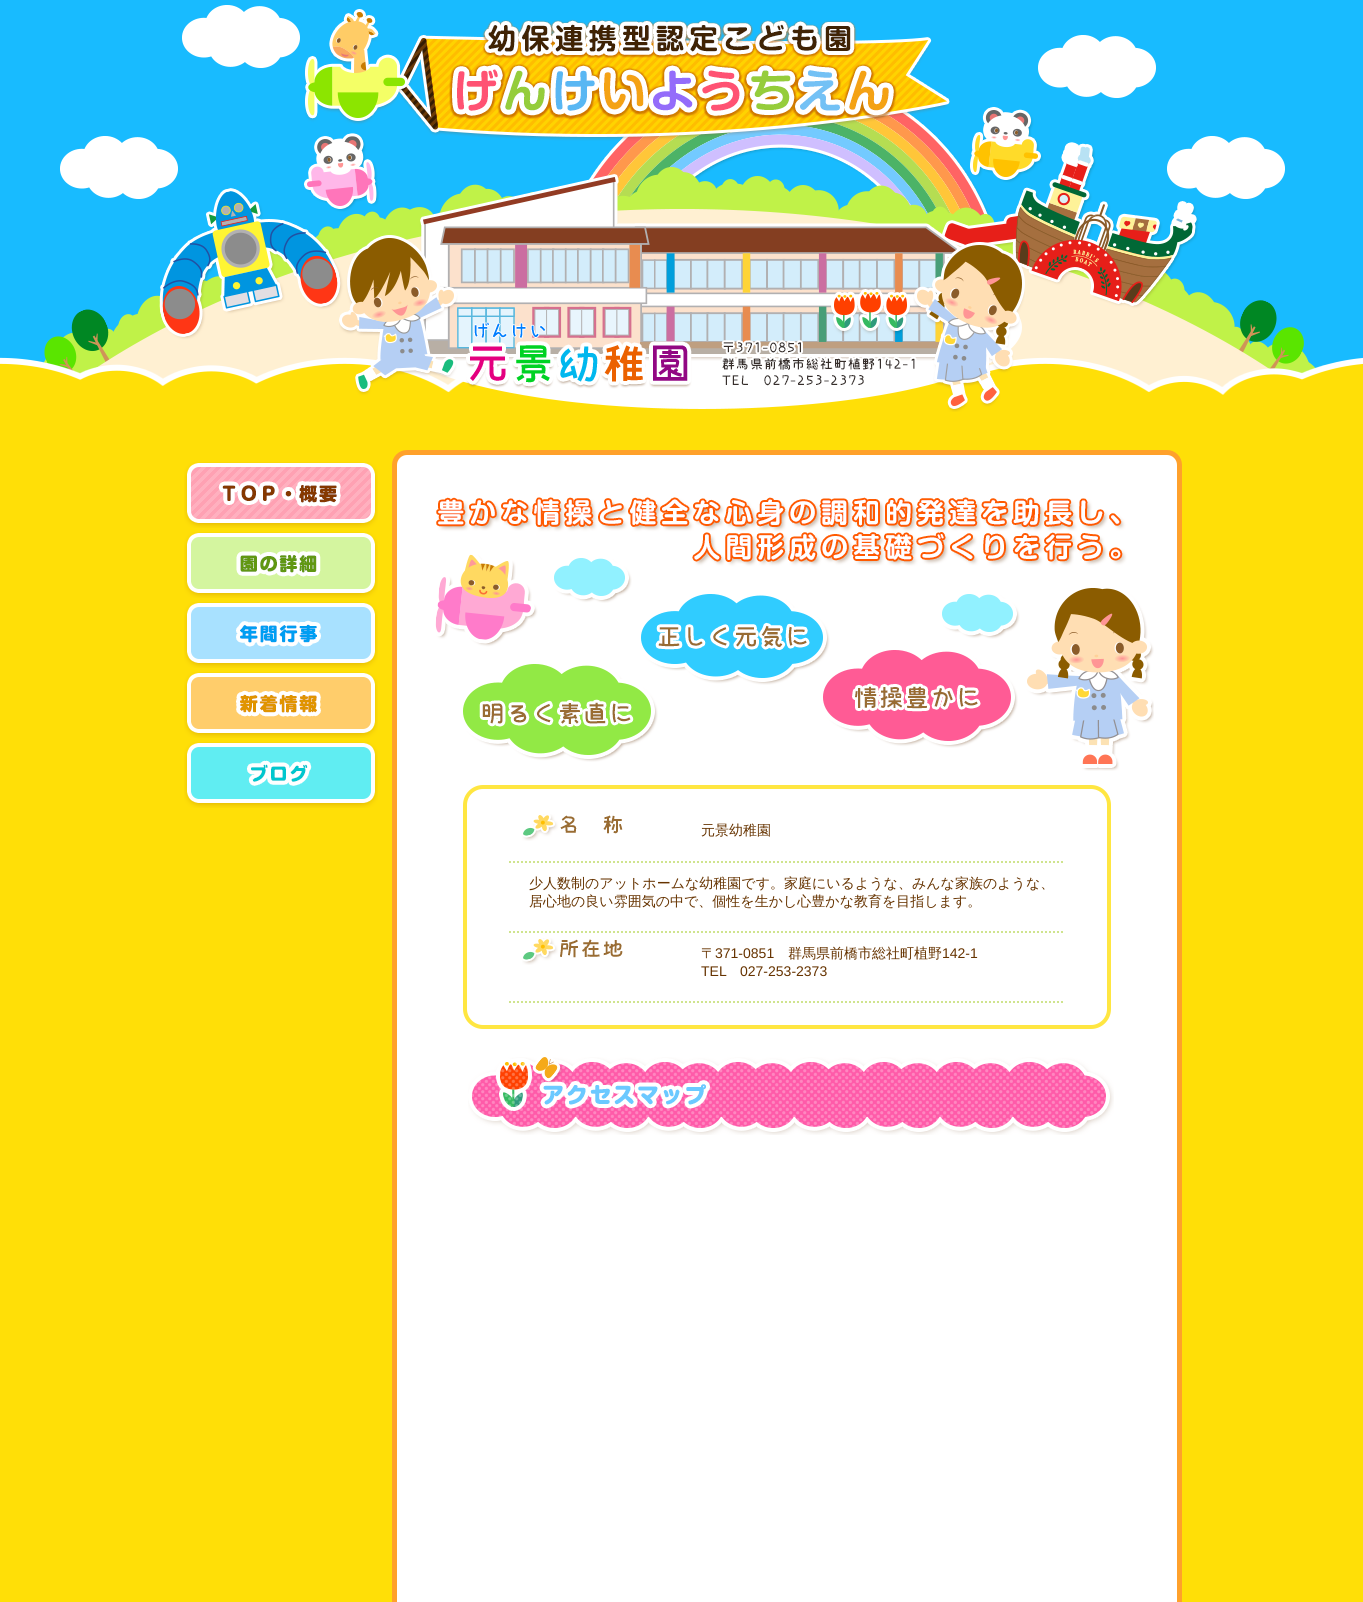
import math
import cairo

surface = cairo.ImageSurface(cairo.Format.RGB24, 1363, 1602)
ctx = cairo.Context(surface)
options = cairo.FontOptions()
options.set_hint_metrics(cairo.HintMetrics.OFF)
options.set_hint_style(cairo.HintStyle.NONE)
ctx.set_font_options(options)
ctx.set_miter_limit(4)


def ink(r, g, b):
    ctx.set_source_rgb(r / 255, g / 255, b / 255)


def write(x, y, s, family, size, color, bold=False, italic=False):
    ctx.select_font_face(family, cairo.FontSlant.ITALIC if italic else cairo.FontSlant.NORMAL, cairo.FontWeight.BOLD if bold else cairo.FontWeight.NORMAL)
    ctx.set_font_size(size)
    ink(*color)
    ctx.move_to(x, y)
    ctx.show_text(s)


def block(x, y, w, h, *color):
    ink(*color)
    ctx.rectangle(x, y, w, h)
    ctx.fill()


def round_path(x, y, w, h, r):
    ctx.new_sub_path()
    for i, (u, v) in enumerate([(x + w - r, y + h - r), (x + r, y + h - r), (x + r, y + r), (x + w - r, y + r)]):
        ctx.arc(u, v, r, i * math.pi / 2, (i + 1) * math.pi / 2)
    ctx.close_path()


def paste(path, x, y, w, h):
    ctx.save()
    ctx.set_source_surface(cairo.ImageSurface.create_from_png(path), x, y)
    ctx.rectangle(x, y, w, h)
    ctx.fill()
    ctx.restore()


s1 = dict(family="WenQuanYi Zen Hei Medium", size=14, color=(102, 51, 0))
s2 = dict(family="Liberation Sans", size=14, color=(102, 51, 0))

ink(24, 187, 255)
ctx.paint()
paste("pic1.png", 32, 5, 1300, 383)
paste("pic2.png", 0, 357, 1363, 93)
paste("pic3.png", 304, 9, 646, 132)
paste("pic4.png", 339, 174, 686, 238)
block(0, 450, 1363, 1152, 255, 223, 7)
paste("pic5.png", 184, 462, 194, 66)
paste("pic6.png", 184, 532, 194, 66)
paste("pic7.png", 184, 602, 194, 66)
paste("pic8.png", 184, 672, 194, 66)
paste("pic9.png", 184, 742, 194, 66)
ink(255, 255, 255)
round_path(394.5, 452.5, 785, 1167, 12.5)
ctx.fill_preserve()
ink(255, 161, 43)
ctx.set_line_width(5)
ctx.stroke()
paste("pic10.png", 435, 497, 719, 274)
round_path(465, 787, 644, 240, 18)
ink(255, 230, 65)
ctx.set_line_width(4)
ctx.stroke()
ctx.new_path()
ctx.move_to(509, 862)
ctx.line_to(679, 862)
ink(207, 228, 142)
ctx.set_line_width(2)
ctx.set_dash([2, 2])
ctx.stroke()
paste("pic11.png", 522, 814, 101, 27)
ctx.new_path()
ctx.move_to(681, 862)
ctx.line_to(1065, 862)
ctx.stroke()
write(701, 835, "元景幼稚園", **s1)
ctx.new_path()
ctx.move_to(509, 932)
ctx.line_to(1065, 932)
ink(207, 228, 142)
ctx.stroke()
write(529, 888, "少人数制のアットホームな幼稚園です。家庭にいるような、みんな家族のような、", **s1)
write(529, 906, "居心地の良い雰囲気の中で、個性を生かし心豊かな教育を目指します。", **s1)
ctx.new_path()
ctx.move_to(509, 1002)
ctx.line_to(679, 1002)
ink(207, 228, 142)
ctx.stroke()
paste("pic12.png", 522, 938, 101, 27)
ctx.new_path()
ctx.move_to(681, 1002)
ctx.line_to(1065, 1002)
ctx.stroke()
write(701, 958, "〒", **s1)
write(715, 958, "371-0851", **s2)
write(788, 958, "群馬県前橋市総社町植野", **s1)
write(942, 958, "142-1", **s2)
write(701, 976, "TEL", **s2)
write(740, 976, "027-253-2373", **s2)
paste("pic13.png", 468, 1057, 646, 78)
surface.write_to_png("screenshot.png")
